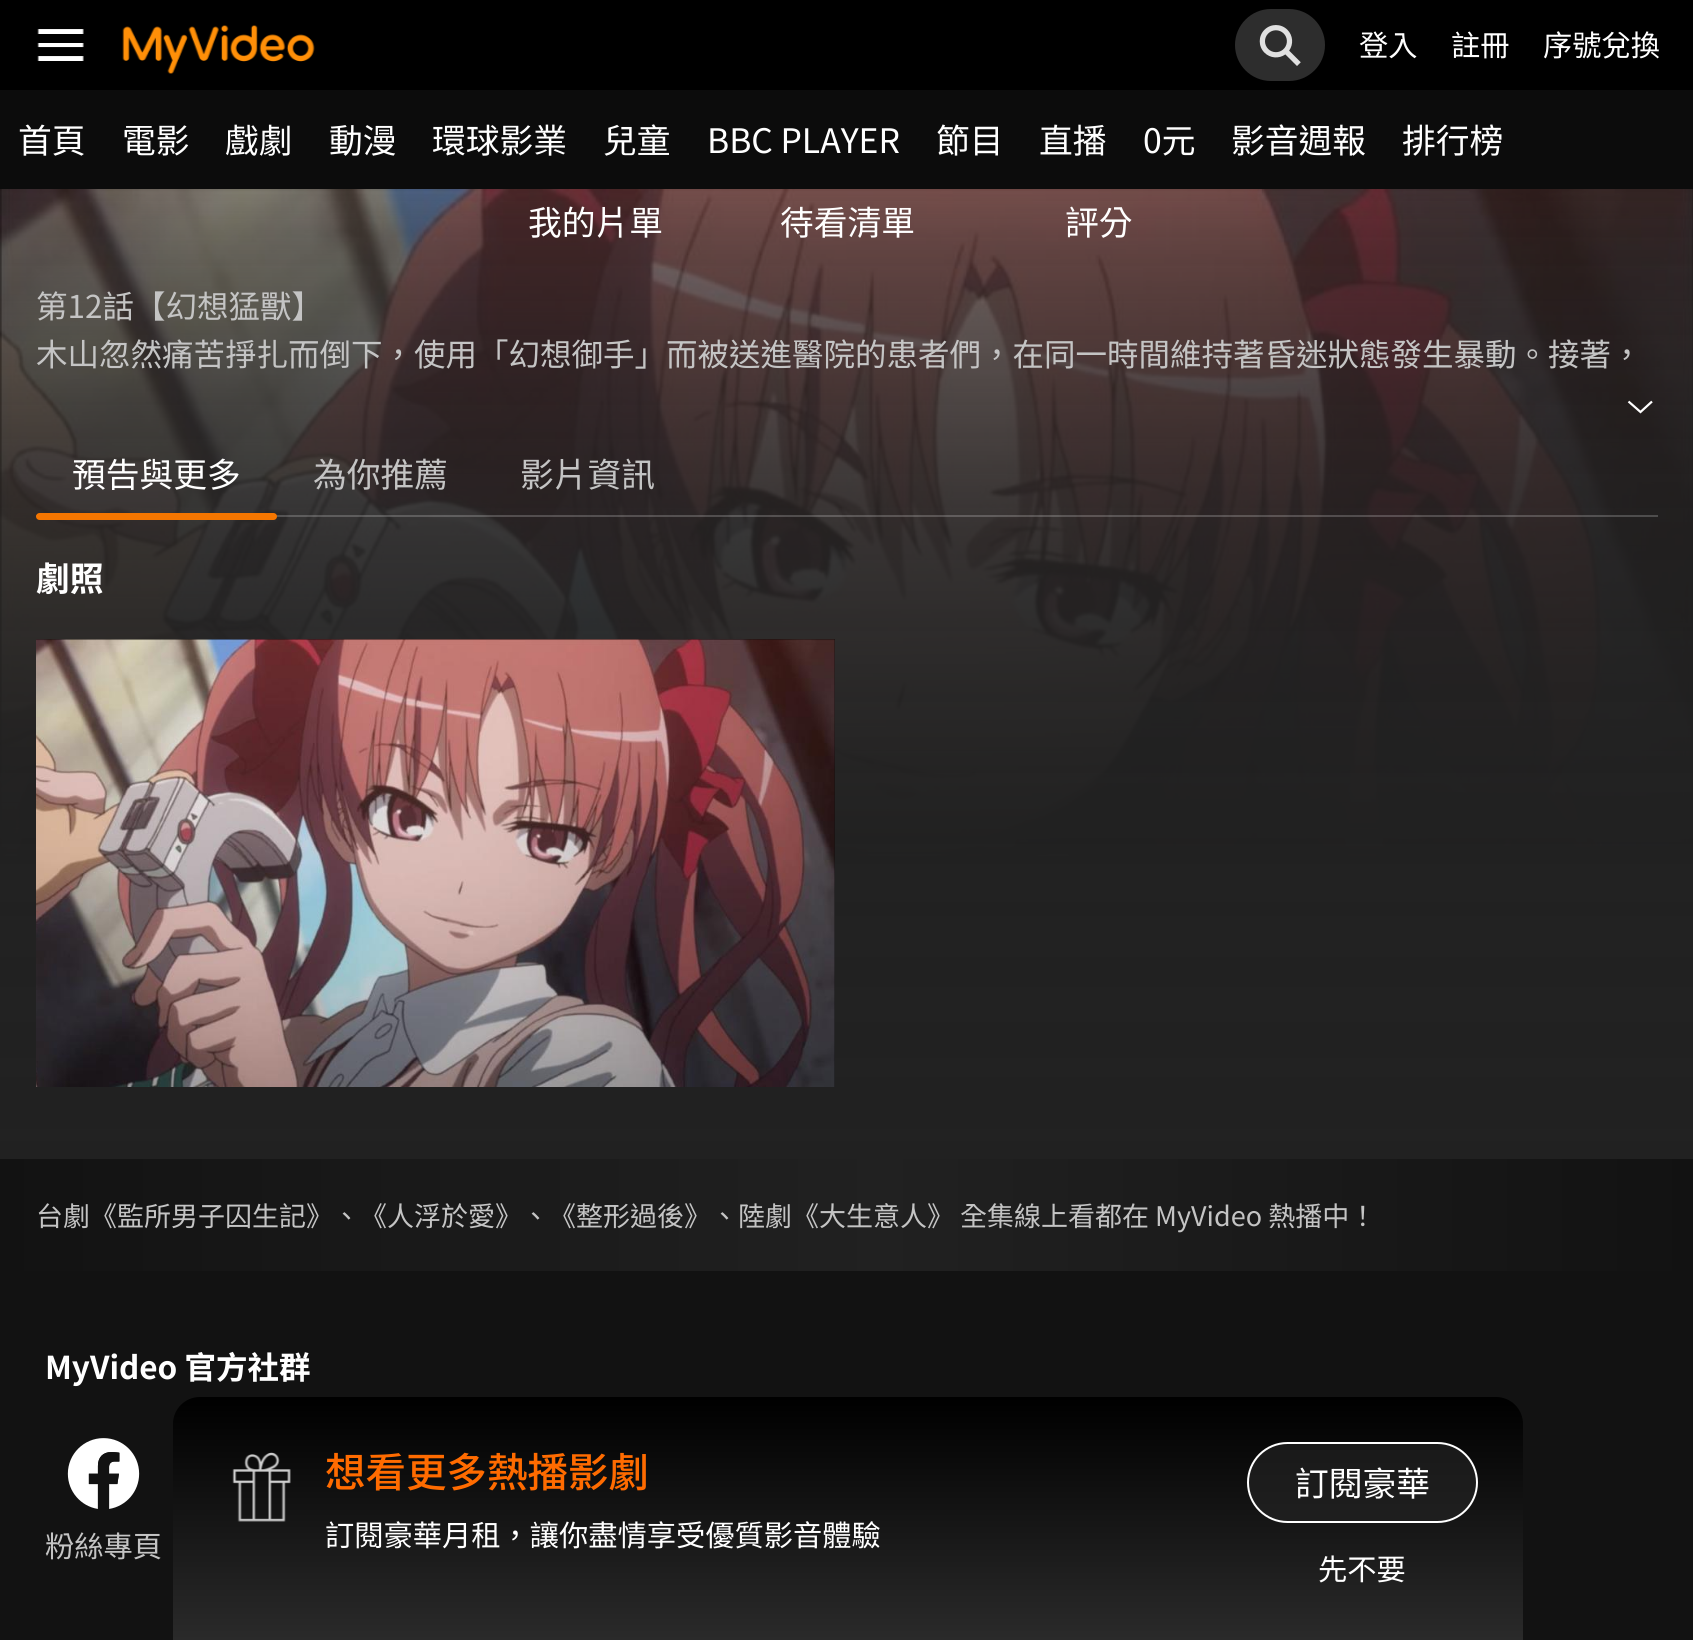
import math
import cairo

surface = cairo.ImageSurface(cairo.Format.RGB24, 1693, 1640)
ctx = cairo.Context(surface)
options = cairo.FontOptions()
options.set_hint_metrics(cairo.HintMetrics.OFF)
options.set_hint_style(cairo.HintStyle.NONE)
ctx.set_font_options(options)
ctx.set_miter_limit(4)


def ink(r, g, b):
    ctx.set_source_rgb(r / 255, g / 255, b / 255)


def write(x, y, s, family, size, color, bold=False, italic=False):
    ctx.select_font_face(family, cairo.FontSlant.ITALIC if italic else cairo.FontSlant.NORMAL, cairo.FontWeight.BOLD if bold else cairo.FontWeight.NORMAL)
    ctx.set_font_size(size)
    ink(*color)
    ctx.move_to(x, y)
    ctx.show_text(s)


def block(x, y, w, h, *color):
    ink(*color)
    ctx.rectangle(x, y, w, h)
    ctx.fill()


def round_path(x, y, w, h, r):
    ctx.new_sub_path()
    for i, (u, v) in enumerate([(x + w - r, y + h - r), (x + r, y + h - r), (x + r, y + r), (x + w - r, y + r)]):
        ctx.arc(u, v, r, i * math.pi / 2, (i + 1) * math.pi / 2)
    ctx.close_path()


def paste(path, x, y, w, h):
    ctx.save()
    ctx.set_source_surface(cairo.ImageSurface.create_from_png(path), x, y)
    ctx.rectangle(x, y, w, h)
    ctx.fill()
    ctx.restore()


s1 = dict(family="Noto Sans TC", size=29.25, color=(255, 255, 255))
s2 = dict(family="Noto Sans TC", size=33.75, color=(255, 255, 255))
s3 = dict(family="Noto Sans TC", size=31.5, color=(196, 196, 196))
s4 = dict(family="Noto Sans TC", size=33.75, color=(196, 196, 196))
s5 = dict(family="Noto Sans TC", size=33.75, color=(255, 255, 255), bold=True)
s6 = dict(family="Noto Sans TC", size=27, color=(196, 196, 196))
s7 = dict(family="Noto Sans TC", size=31.5, color=(255, 255, 255), bold=True)
s8 = dict(family="Noto Sans TC", size=29.25, color=(196, 196, 196))
s9 = dict(family="Noto Sans TC Medium", size=40.5, color=(255, 107, 0))

ink(39, 39, 39)
ctx.paint()
block(0, 0, 1693, 90, 0, 0, 0)
paste("pic1.png", 37, 29, 47, 32)
paste("pic2.png", 122, 25, 193, 49)
ink(45, 45, 45)
round_path(1235, 9, 90, 72, 36)
ctx.fill()
paste("pic3.png", 1259, 25, 42, 41)
write(1359, 56, "登入", **s1)
write(1451, 56, "註冊", **s1)
write(1543, 56, "序號兌換", **s1)
block(0, 90, 1693, 99, 12, 12, 12)
write(18, 153, "首頁", **s2)
write(122, 153, "電影", **s2)
write(225, 153, "戲劇", **s2)
write(329, 153, "動漫", **s2)
write(432, 153, "環球影業", **s2)
write(603, 153, "兒童", **s2)
write(707, 153, "BBC PLAYER", **s2)
write(936, 153, "節目", **s2)
write(1039, 153, "直播", **s2)
write(1143, 153, "0元", **s2)
write(1231, 153, "影音週報", **s2)
write(1402, 153, "排行榜", **s2)
paste("pic4.png", 0, 189, 1693, 670)
gradient = cairo.LinearGradient(843, 189, 843, 864)
gradient.add_color_stop_rgba(0, 0.129, 0.129, 0.129, 0.2)
gradient.add_color_stop_rgba(1, 0.129, 0.129, 0.129, 1)
ctx.set_source(gradient)
ctx.rectangle(0, 189, 1693, 675)
ctx.fill()
gradient = cairo.LinearGradient(847, -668, 847, 1228)
gradient.add_color_stop_rgba(0.34, 0.129, 0.129, 0.129, 0)
gradient.add_color_stop_rgba(0.48, 0.129, 0.129, 0.129, 0.45)
gradient.add_color_stop_rgba(0.63, 0.129, 0.129, 0.129, 0.7)
gradient.add_color_stop_rgba(1, 0.129, 0.129, 0.129, 1)
ctx.set_source(gradient)
ctx.rectangle(0, 189, 1693, 970)
ctx.fill()
write(528, 235, "我的片單", **s2)
write(780, 235, "待看清單", **s2)
write(1065, 235, "評分", **s2)
write(36, 318, "第12話【幻想猛獸】", **s3)
write(36, 366, "木山忽然痛苦掙扎而倒下，使用「幻想御手」而被送進醫院的患者們，在同一時間維持著昏迷狀態發生暴動。接著，", **s3)
ctx.new_path()
ctx.move_to(1652, 401.5)
ctx.line_to(1640.5, 412)
ctx.line_to(1628.5, 401.5)
ink(255, 255, 255)
ctx.set_line_width(2.2)
ctx.stroke()
ctx.set_source_rgba(1, 1, 1, 0.2)
ctx.rectangle(36, 515, 1622, 2)
ctx.fill()
write(72, 487, "預告與更多", **s2)
write(313, 487, "為你推薦", **s4)
write(520, 487, "影片資訊", **s4)
ink(245, 118, 0)
round_path(36, 513, 241, 7, 3.5)
ctx.fill()
write(36, 591, "劇照", **s5)
block(36, 639, 799, 448, 18, 18, 18)
paste("pic5.png", 36, 639, 799, 448)
block(0, 1271, 1693, 369, 18, 18, 18)
gradient = cairo.LinearGradient(0, 1215, 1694, 1215)
gradient.add_color_stop_rgba(0, 0.071, 0.071, 0.071, 1)
gradient.add_color_stop_rgba(0.52, 0.129, 0.129, 0.129, 1)
gradient.add_color_stop_rgba(1, 0.071, 0.071, 0.071, 1)
ctx.set_source(gradient)
ctx.rectangle(0, 1159, 1693, 112)
ctx.fill()
write(36, 1226, "台劇《監所男子囚生記》、《人浮於愛》、《整形過後》、陸劇《大生意人》 全集線上看都在 MyVideo 熱播中！", **s6)
write(45, 1379, "MyVideo 官方社群", **s7)
paste("pic6.png", 67, 1438, 73, 71)
write(45, 1557, "粉絲專頁", **s8)
gradient = cairo.LinearGradient(848, 1397, 848, 1640)
gradient.add_color_stop_rgba(0, 0, 0, 0, 1)
gradient.add_color_stop_rgba(1, 0.165, 0.165, 0.165, 1)
ctx.set_source(gradient)
ctx.new_path()
ctx.move_to(200, 1397)
ctx.line_to(1496, 1397)
ctx.curve_to(1511, 1397, 1523, 1409, 1523, 1424)
ctx.line_to(1523, 1640)
ctx.line_to(173, 1640)
ctx.line_to(173, 1424)
ctx.curve_to(173, 1409, 185, 1397, 200, 1397)
ctx.close_path()
ctx.fill()
paste("pic7.png", 232, 1452, 59, 70)
write(325, 1487, "想看更多熱播影劇", **s9)
write(325, 1546, "訂閱豪華月租，讓你盡情享受優質影音體驗", **s1)
ctx.set_source_rgba(0.149, 0.149, 0.149, 0.6)
round_path(1248, 1443, 229, 79, 39.5)
ctx.fill_preserve()
ink(255, 255, 255)
ctx.set_line_width(2)
ctx.stroke()
write(1295, 1496, "訂閱豪華", **s2)
write(1318, 1580, "先不要", **s1)
surface.write_to_png("screenshot.png")
